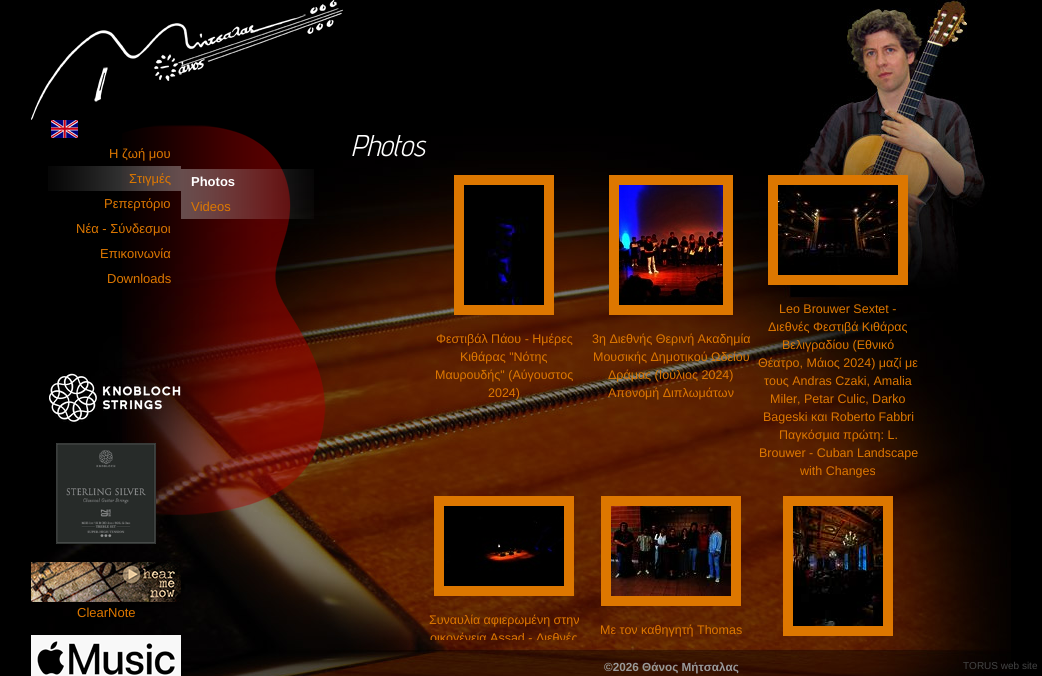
import math
import cairo

surface = cairo.ImageSurface(cairo.Format.RGB24, 1042, 676)
ctx = cairo.Context(surface)
options = cairo.FontOptions()
options.set_hint_metrics(cairo.HintMetrics.OFF)
options.set_hint_style(cairo.HintStyle.NONE)
ctx.set_font_options(options)
ctx.set_miter_limit(4)


def ink(r, g, b):
    ctx.set_source_rgb(r / 255, g / 255, b / 255)


def write(x, y, s, family, size, color, bold=False, italic=False):
    ctx.select_font_face(family, cairo.FontSlant.ITALIC if italic else cairo.FontSlant.NORMAL, cairo.FontWeight.BOLD if bold else cairo.FontWeight.NORMAL)
    ctx.set_font_size(size)
    ink(*color)
    ctx.move_to(x, y)
    ctx.show_text(s)


def paste(path, x, y, w, h):
    ctx.save()
    ctx.set_source_surface(cairo.ImageSurface.create_from_png(path), x, y)
    ctx.rectangle(x, y, w, h)
    ctx.fill()
    ctx.restore()


s1 = dict(family="Liberation Sans", size=13, color=(221, 119, 0))
s2 = dict(family="Liberation Sans", size=13, color=(255, 255, 255), bold=True)
s3 = dict(family="Advent Pro", size=30, color=(255, 255, 255), italic=True)
s4 = dict(family="Liberation Sans", size=12.5, color=(221, 119, 0))
s5 = dict(family="Liberation Sans", size=11.75, color=(153, 153, 153), bold=True)
s6 = dict(family="Liberation Sans", size=10, color=(68, 68, 68))

ink(0, 0, 0)
ctx.paint()
paste("pic1.png", 39, 0, 972, 676)
paste("pic2.png", 31, 0, 312, 120)
paste("pic3.png", 122, 125, 204, 390)
paste("pic4.png", 51, 120, 27, 18)
write(109, 158, "Η ζωή μου", **s1)
paste("pic5.png", 48, 166, 133, 25)
write(129, 183, "Στιγμές", **s1)
write(104, 208, "Ρεπερτόριο", **s1)
write(76, 233, "Νέα - Σύνδεσμοι", **s1)
write(100, 258, "Επικοινωνία", **s1)
write(107, 283, "Downloads", **s1)
paste("pic6.png", 49, 372, 132, 52)
paste("pic7.png", 56, 443, 100, 101)
paste("pic8.png", 31, 562, 150, 40)
write(77, 617, "ClearNote", **s1)
paste("pic9.png", 31, 635, 150, 41)
paste("pic10.png", 181, 169, 133, 25)
write(191, 186, "Photos", **s2)
paste("pic11.png", 181, 194, 133, 25)
write(191, 211, "Videos", **s1)
write(351, 156, "Photos", **s3)
ctx.rectangle(459, 180, 90, 130)
ink(221, 119, 0)
ctx.set_line_width(10)
ctx.stroke()
paste("pic12.png", 464, 185, 80, 120)
write(436, 343, "Φεστιβάλ Πάου - Ημέρες", **s4)
write(460, 361, "Κιθάρας \"Νότης", **s4)
write(435, 379, "Μαυρουδής\" (Αύγουστος", **s4)
write(488, 397, "2024)", **s4)
ctx.rectangle(614, 180, 114, 130)
ctx.stroke()
paste("pic13.png", 619, 185, 104, 120)
write(592, 343, "3η Διεθνής Θερινή Ακαδημία", **s4)
write(593, 361, "Μουσικής Δημοτικού Ωδείου", **s4)
write(608, 379, "Δράμας (Ιούλιος 2024)", **s4)
write(608, 397, "Απονομή Διπλωμάτων", **s4)
ctx.rectangle(773, 180, 130, 100)
ctx.stroke()
paste("pic14.png", 778, 185, 120, 90)
write(779, 313, "Leo Brouwer Sextet -", **s4)
write(768, 331, "Διεθνές Φεστιβά Κιθάρας", **s4)
write(782, 349, "Βελιγραδίου (Εθνικό", **s4)
write(758, 367, "Θέατρο, Μάιος 2024) μαζί με", **s4)
write(764, 385, "τους Andras Czaki, Amalia", **s4)
write(770, 403, "Miler, Petar Culic, Darko", **s4)
write(763, 421, "Bageski και Roberto Fabbri", **s4)
write(779, 439, "Παγκόσμια πρώτη: L.", **s4)
write(759, 457, "Brouwer - Cuban Landscape", **s4)
write(800, 475, "with Changes", **s4)
ctx.rectangle(439, 501, 130, 90)
ctx.stroke()
paste("pic15.png", 444, 506, 120, 80)
write(429, 624, "Συναυλία αφιερωμένη στην", **s4)
ctx.save()
ctx.rectangle(331, 120, 680, 520)
ctx.clip()
write(430, 642, "οικογένεια Assad - Διεθνές", **s4)
ctx.restore()
ctx.rectangle(606, 501, 130, 100)
ctx.stroke()
paste("pic16.png", 611, 506, 120, 90)
write(600, 634, "Με τον καθηγητή Thomas", **s4)
ctx.rectangle(788, 501, 100, 130)
ctx.stroke()
paste("pic17.png", 793, 506, 90, 120)
write(604, 671, "©2026 Θάνος Μήτσαλας", **s5)
write(963, 669, "TORUS web site", **s6)
surface.write_to_png("screenshot.png")
